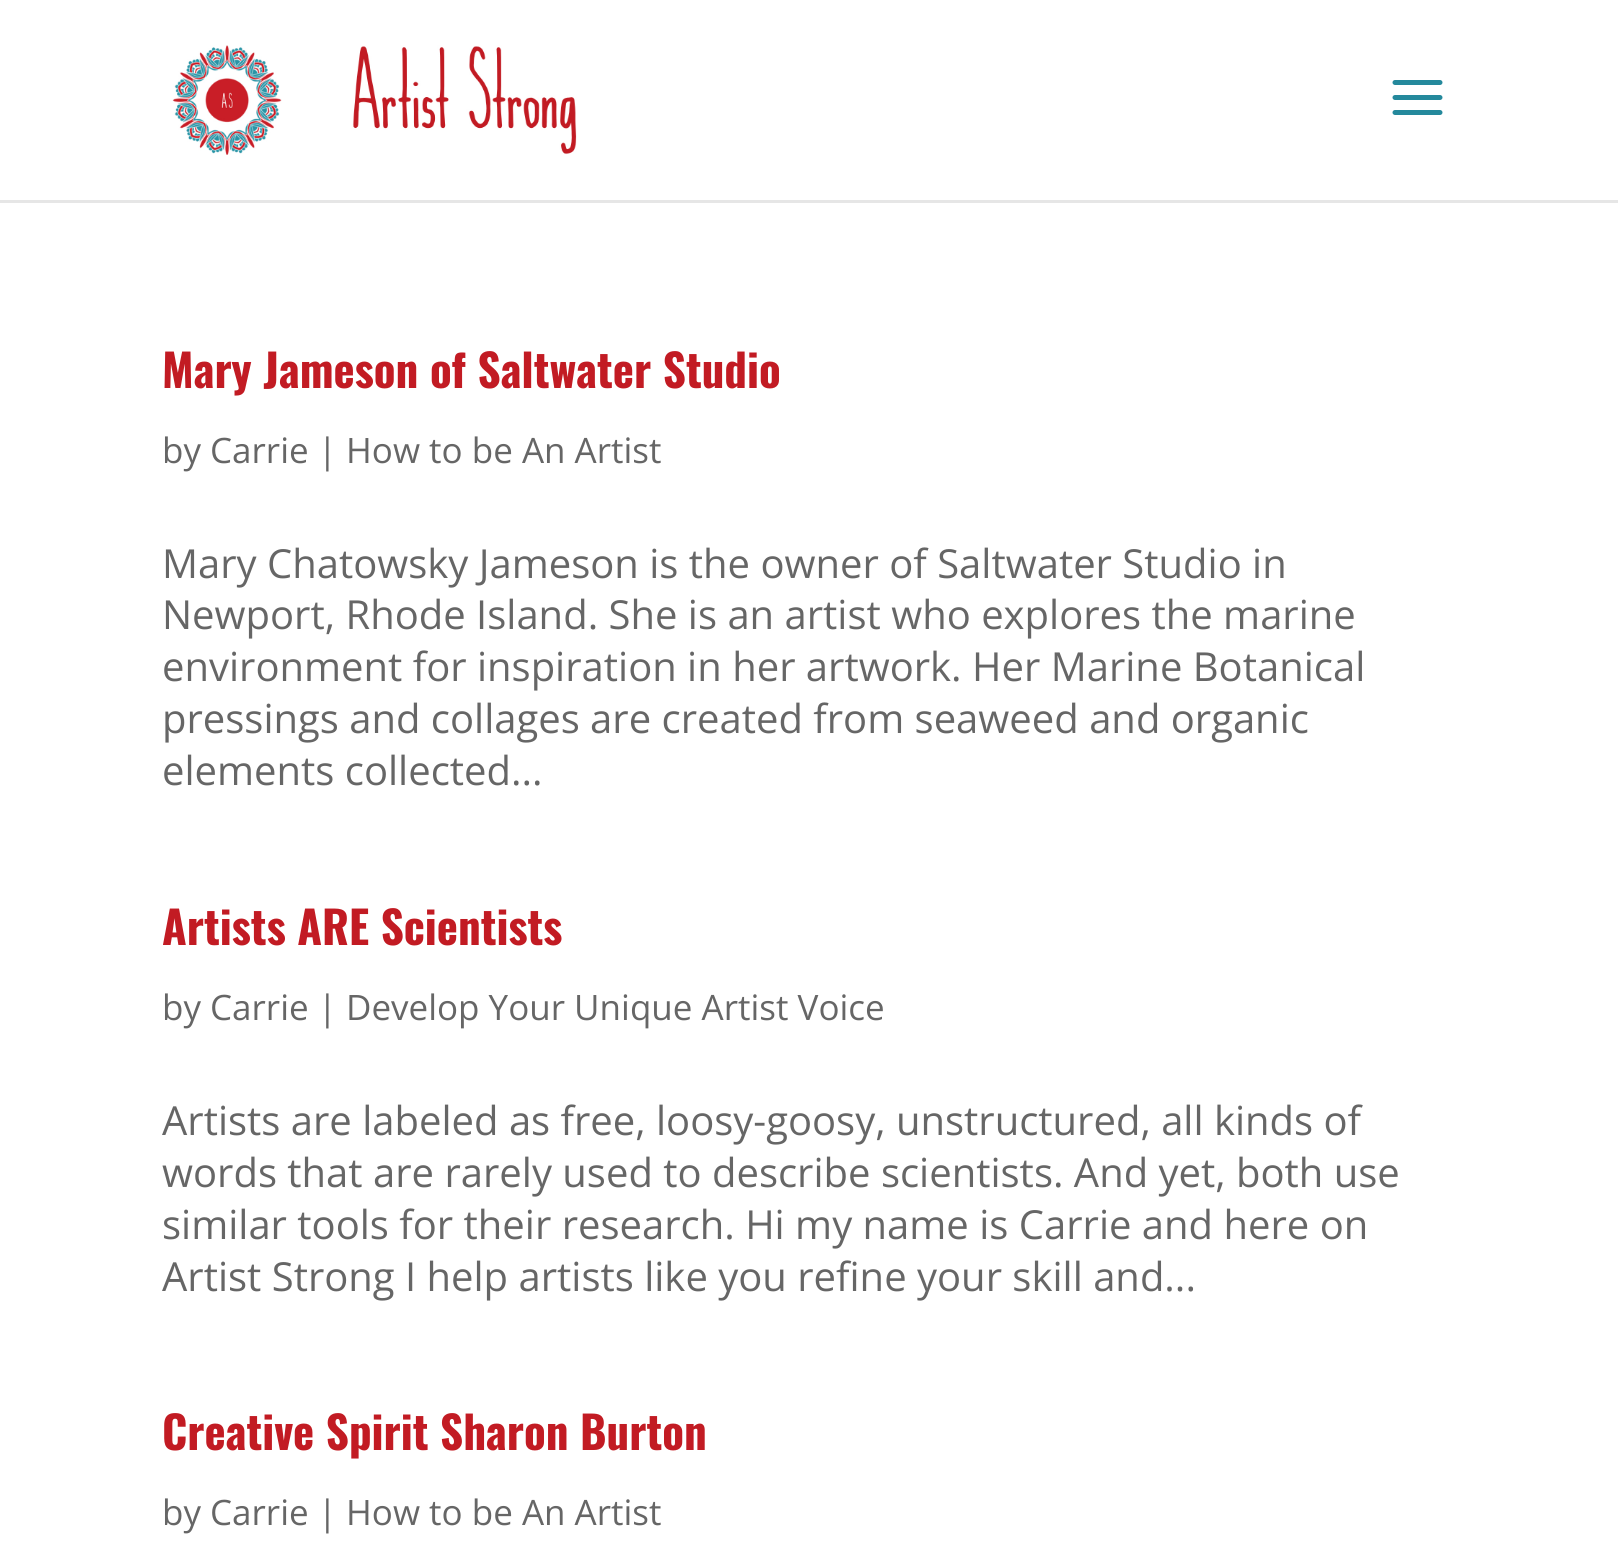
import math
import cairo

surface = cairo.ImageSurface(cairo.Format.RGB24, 1618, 1551)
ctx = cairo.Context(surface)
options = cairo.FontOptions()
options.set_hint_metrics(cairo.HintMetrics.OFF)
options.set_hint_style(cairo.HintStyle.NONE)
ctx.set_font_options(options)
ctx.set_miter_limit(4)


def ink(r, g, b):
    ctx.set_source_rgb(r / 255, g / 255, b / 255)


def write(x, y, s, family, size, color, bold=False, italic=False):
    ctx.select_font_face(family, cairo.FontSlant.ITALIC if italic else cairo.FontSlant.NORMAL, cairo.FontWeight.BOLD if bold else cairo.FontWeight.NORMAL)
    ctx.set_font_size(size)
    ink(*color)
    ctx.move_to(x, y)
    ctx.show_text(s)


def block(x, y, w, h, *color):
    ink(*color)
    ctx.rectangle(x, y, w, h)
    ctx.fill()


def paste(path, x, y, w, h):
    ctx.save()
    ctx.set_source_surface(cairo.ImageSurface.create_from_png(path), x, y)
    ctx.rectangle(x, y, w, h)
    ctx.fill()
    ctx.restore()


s1 = dict(family="Oswald", size=45, color=(194, 27, 35), bold=True)
s2 = dict(family="Open Sans", size=35, color=(102, 102, 102))
s3 = dict(family="Open Sans", size=40, color=(102, 102, 102))

ink(255, 255, 255)
ctx.paint()
block(0, 200, 1618, 3, 230, 230, 230)
paste("pic1.png", 172, 45, 405, 110)
paste("pic2.png", 1392, 80, 51, 35)
write(162, 388, "Mary Jameson of Saltwater Studio", **s1)
write(162, 463, "by Carrie | How to be An Artist", **s2)
write(162, 578, "Mary Chatowsky Jameson is the owner of Saltwater Studio in", **s3)
write(162, 629, "Newport, Rhode Island. She is an artist who explores the marine", **s3)
write(162, 681, "environment for inspiration in her artwork. Her Marine Botanical", **s3)
write(162, 733, "pressings and collages are created from seaweed and organic", **s3)
write(162, 785, "elements collected...", **s3)
write(162, 945, "Artists ARE Scientists", **s1)
write(162, 1020, "by Carrie | Develop Your Unique Artist Voice", **s2)
write(162, 1135, "Artists are labeled as free, loosy-goosy, unstructured, all kinds of", **s3)
write(162, 1187, "words that are rarely used to describe scientists. And yet, both use", **s3)
write(162, 1239, "similar tools for their research. Hi my name is Carrie and here on", **s3)
write(162, 1291, "Artist Strong I help artists like you refine your skill and...", **s3)
write(162, 1450, "Creative Spirit Sharon Burton", **s1)
write(162, 1525, "by Carrie | How to be An Artist", **s2)
surface.write_to_png("screenshot.png")
